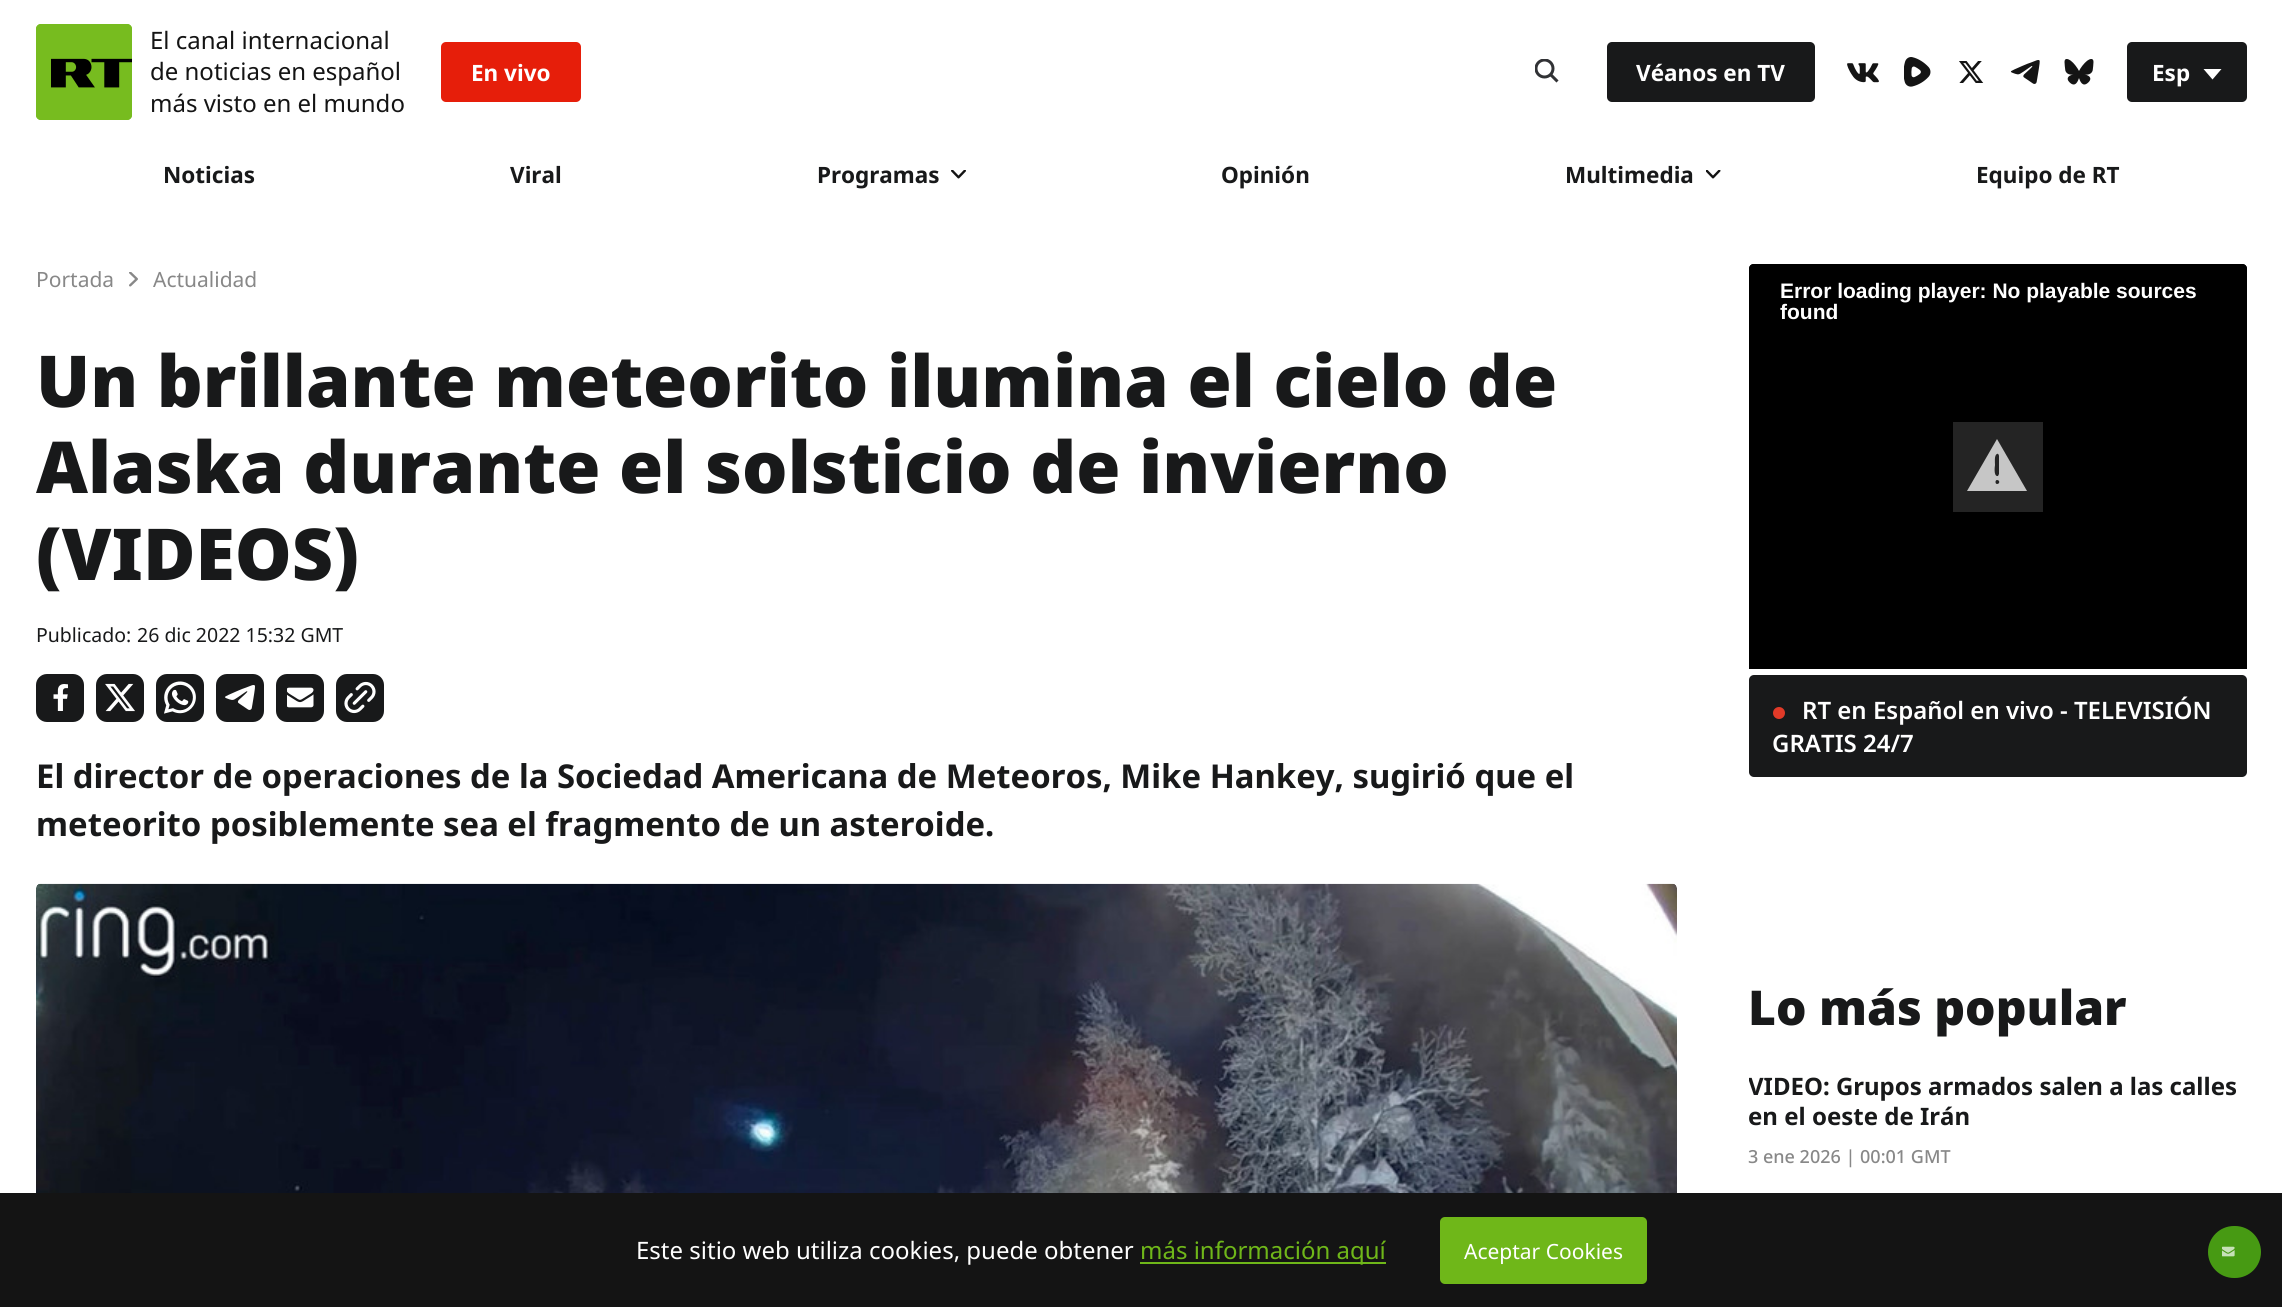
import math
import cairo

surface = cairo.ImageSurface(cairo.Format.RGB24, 2282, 1307)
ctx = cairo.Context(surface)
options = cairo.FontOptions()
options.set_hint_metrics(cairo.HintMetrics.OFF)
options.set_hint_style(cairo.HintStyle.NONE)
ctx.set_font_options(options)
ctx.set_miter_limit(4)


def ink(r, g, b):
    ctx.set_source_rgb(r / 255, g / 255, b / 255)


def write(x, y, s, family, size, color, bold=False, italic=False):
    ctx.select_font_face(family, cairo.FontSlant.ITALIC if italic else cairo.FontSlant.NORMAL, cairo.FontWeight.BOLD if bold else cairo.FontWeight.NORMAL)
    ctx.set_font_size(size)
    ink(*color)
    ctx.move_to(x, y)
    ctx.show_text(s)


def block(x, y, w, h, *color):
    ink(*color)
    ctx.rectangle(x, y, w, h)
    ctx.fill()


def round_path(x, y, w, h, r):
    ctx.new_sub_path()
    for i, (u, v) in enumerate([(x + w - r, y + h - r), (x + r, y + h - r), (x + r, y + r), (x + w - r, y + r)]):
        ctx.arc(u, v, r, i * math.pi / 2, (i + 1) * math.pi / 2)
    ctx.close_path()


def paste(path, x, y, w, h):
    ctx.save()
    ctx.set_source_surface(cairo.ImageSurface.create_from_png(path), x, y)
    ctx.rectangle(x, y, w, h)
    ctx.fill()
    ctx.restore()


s1 = dict(family="Noto Sans", size=24, color=(20, 20, 20))
s2 = dict(family="Noto Sans", size=22.5, color=(255, 255, 255), bold=True)
s3 = dict(family="Noto Sans", size=22.5, color=(24, 25, 26), bold=True)
s4 = dict(family="Noto Sans", size=21, color=(136, 136, 136))
s5 = dict(family="Noto Sans Black", size=71.6, color=(24, 25, 26))
s6 = dict(family="Noto Sans", size=19.5, color=(24, 25, 26))
s7 = dict(family="Noto Sans", size=32.85, color=(24, 25, 26), bold=True)
s8 = dict(family="Liberation Sans", size=21, color=(255, 255, 255), bold=True)
s9 = dict(family="Noto Sans SemiBold", size=24, color=(255, 255, 255))
s10 = dict(family="Noto Sans Black", size=48, color=(24, 25, 26))
s11 = dict(family="Noto Sans", size=24, color=(24, 25, 26), bold=True)
s12 = dict(family="Noto Sans Medium", size=18, color=(136, 136, 136))
s13 = dict(family="Noto Sans", size=24, color=(255, 255, 255))
s14 = dict(family="Noto Sans", size=24, color=(111, 183, 25))
s15 = dict(family="Noto Sans", size=21, color=(255, 255, 255))

ink(255, 255, 255)
ctx.paint()
paste("pic1.png", 36, 24, 96, 96)
write(150, 49, "El canal internacional", **s1)
write(150, 80, "de noticias en español", **s1)
write(150, 112, "más visto en el mundo", **s1)
ink(230, 30, 10)
round_path(441, 42, 140, 60, 5)
ctx.fill()
write(471, 81, "En vivo", **s2)
ctx.save()
ctx.rectangle(1535, 59, 24, 24)
ctx.clip()
ctx.arc(1544.5, 68.5, 8.5, 0, 2 * math.pi)
ink(49, 50, 53)
ctx.set_line_width(3)
ctx.stroke()
ctx.restore()
ctx.new_path()
ctx.move_to(1551, 75)
ctx.line_to(1557.5, 81.5)
ink(49, 50, 53)
ctx.set_line_width(3)
ctx.stroke()
ink(24, 25, 26)
round_path(1607, 42, 208, 60, 5)
ctx.fill()
write(1636, 81, "Véanos en TV", **s2)
paste("pic2.png", 1847, 63, 32, 20)
paste("pic3.png", 1904, 57, 27, 30)
paste("pic4.png", 1959, 61, 25, 22)
paste("pic5.png", 2010, 60, 30, 24)
paste("pic6.png", 2064, 59, 30, 26)
ink(24, 25, 26)
round_path(2127, 42, 120, 60, 5)
ctx.fill()
write(2152, 81, "Esp", **s2)
ctx.new_path()
ctx.move_to(2203.5, 69)
ctx.line_to(2221.5, 69)
ctx.line_to(2212.5, 79.5)
ctx.close_path()
ctx.fill()
write(163, 183, "Noticias", **s3)
write(510, 183, "Viral", **s3)
write(817, 183, "Programas", **s3)
paste("pic7.png", 951, 170, 15, 9)
write(1221, 183, "Opinión", **s3)
write(1565, 183, "Multimedia", **s3)
paste("pic8.png", 1706, 170, 15, 9)
write(1976, 183, "Equipo de RT", **s3)
write(36, 287, "Portada", **s4)
paste("pic9.png", 129, 272, 9, 15)
write(153, 287, "Actualidad", **s4)
write(36, 407, "Un brillante meteorito ilumina el cielo de", **s5)
write(36, 493, "Alaska durante el solsticio de invierno", **s5)
write(36, 580, "(VIDEOS)", **s5)
write(36, 642, "Publicado:", **s6)
write(137, 642, "26 dic 2022 15:32 GMT", **s6)
round_path(36, 674, 48, 48, 11)
ctx.fill()
paste("pic10.png", 53, 684, 15, 27)
round_path(96, 674, 48, 48, 11)
ctx.fill()
paste("pic11.png", 105, 683, 30, 29)
round_path(156, 674, 48, 48, 11)
ctx.fill()
paste("pic12.png", 164, 681, 32, 33)
round_path(216, 674, 48, 48, 11)
ctx.fill()
paste("pic13.png", 225, 685, 30, 25)
round_path(276, 674, 48, 48, 11)
ctx.fill()
paste("pic14.png", 287, 687, 27, 21)
round_path(336, 674, 48, 48, 11)
ctx.fill()
paste("pic15.png", 344, 681, 32, 33)
write(36, 788, "El director de operaciones de la Sociedad Americana de Meteoros, Mike Hankey, sugirió que el", **s7)
write(36, 836, "meteorito posiblemente sea el fragmento de un asteroide.", **s7)
paste("pic16.png", 36, 883, 1641, 310)
ink(0, 0, 0)
ctx.new_path()
ctx.move_to(1754, 264)
ctx.line_to(2242, 264)
ctx.curve_to(2245, 264, 2247, 266, 2247, 269)
ctx.line_to(2247, 669)
ctx.line_to(1749, 669)
ctx.line_to(1749, 269)
ctx.curve_to(1749, 266, 1751, 264, 1754, 264)
ctx.close_path()
ctx.fill()
gradient = cairo.LinearGradient(1998, 264, 1998, 432)
gradient.add_color_stop_rgba(0, 0, 0, 0, 1)
gradient.add_color_stop_rgba(0.18, 0, 0, 0, 1)
gradient.add_color_stop_rgba(1, 0, 0, 0, 0)
ctx.set_source(gradient)
ctx.new_path()
ctx.move_to(1754, 264)
ctx.line_to(2242, 264)
ctx.curve_to(2245, 264, 2247, 266, 2247, 269)
ctx.line_to(2247, 432)
ctx.line_to(1749, 432)
ctx.line_to(1749, 269)
ctx.curve_to(1749, 266, 1751, 264, 1754, 264)
ctx.close_path()
ctx.fill()
write(1780, 298, "Error loading player: No playable sources", **s8)
write(1780, 319, "found", **s8)
block(1953, 422, 90, 90, 36, 36, 36)
ink(198, 198, 198)
ctx.new_path()
ctx.move_to(1967, 491)
ctx.line_to(1997, 439)
ctx.line_to(2027, 491)
ctx.close_path()
ctx.move_to(1997, 484)
ctx.curve_to(2000, 484, 2000, 480, 1997, 480)
ctx.curve_to(1995, 480, 1995, 484, 1997, 484)
ctx.close_path()
ctx.move_to(1999, 456)
ctx.curve_to(1999, 455, 1998, 453, 1997, 454)
ctx.curve_to(1994, 455, 1995, 463, 1995, 465)
ctx.curve_to(1995, 465, 1993, 477, 1998, 476)
ctx.line_to(1999, 474)
ctx.close_path()
ctx.fill()
ink(24, 25, 26)
round_path(1749, 675, 498, 102, 5)
ctx.fill()
ink(225, 58, 40)
ctx.arc(1779, 713, 6, 0, 2 * math.pi)
ctx.fill()
write(1802, 719, "RT en Español en vivo - TELEVISIÓN", **s9)
write(1772, 752, "GRATIS 24/7", **s9)
write(1748, 1025, "Lo más popular", **s10)
ctx.save()
ctx.rectangle(1749, 1071, 498, 99)
ctx.clip()
write(1748, 1095, "VIDEO: Grupos armados salen a las calles", **s11)
ctx.restore()
write(1748, 1125, "en el oeste de Irán", **s11)
write(1748, 1163, "3 ene 2026 | 00:01 GMT", **s12)
block(0, 1193, 2282, 114, 20, 20, 20)
write(636, 1259, "Este sitio web utiliza cookies, puede obtener", **s13)
block(1140, 1262, 246, 2, 111, 183, 25)
write(1140, 1259, "más información aquí", **s14)
round_path(1440, 1217, 207, 67, 5)
ctx.fill()
write(1464, 1259, "Aceptar Cookies", **s15)
ink(71, 154, 19)
round_path(2208, 1226, 53, 52, 26)
ctx.fill()
paste("pic17.png", 2222, 1246, 13, 11)
surface.write_to_png("screenshot.png")
